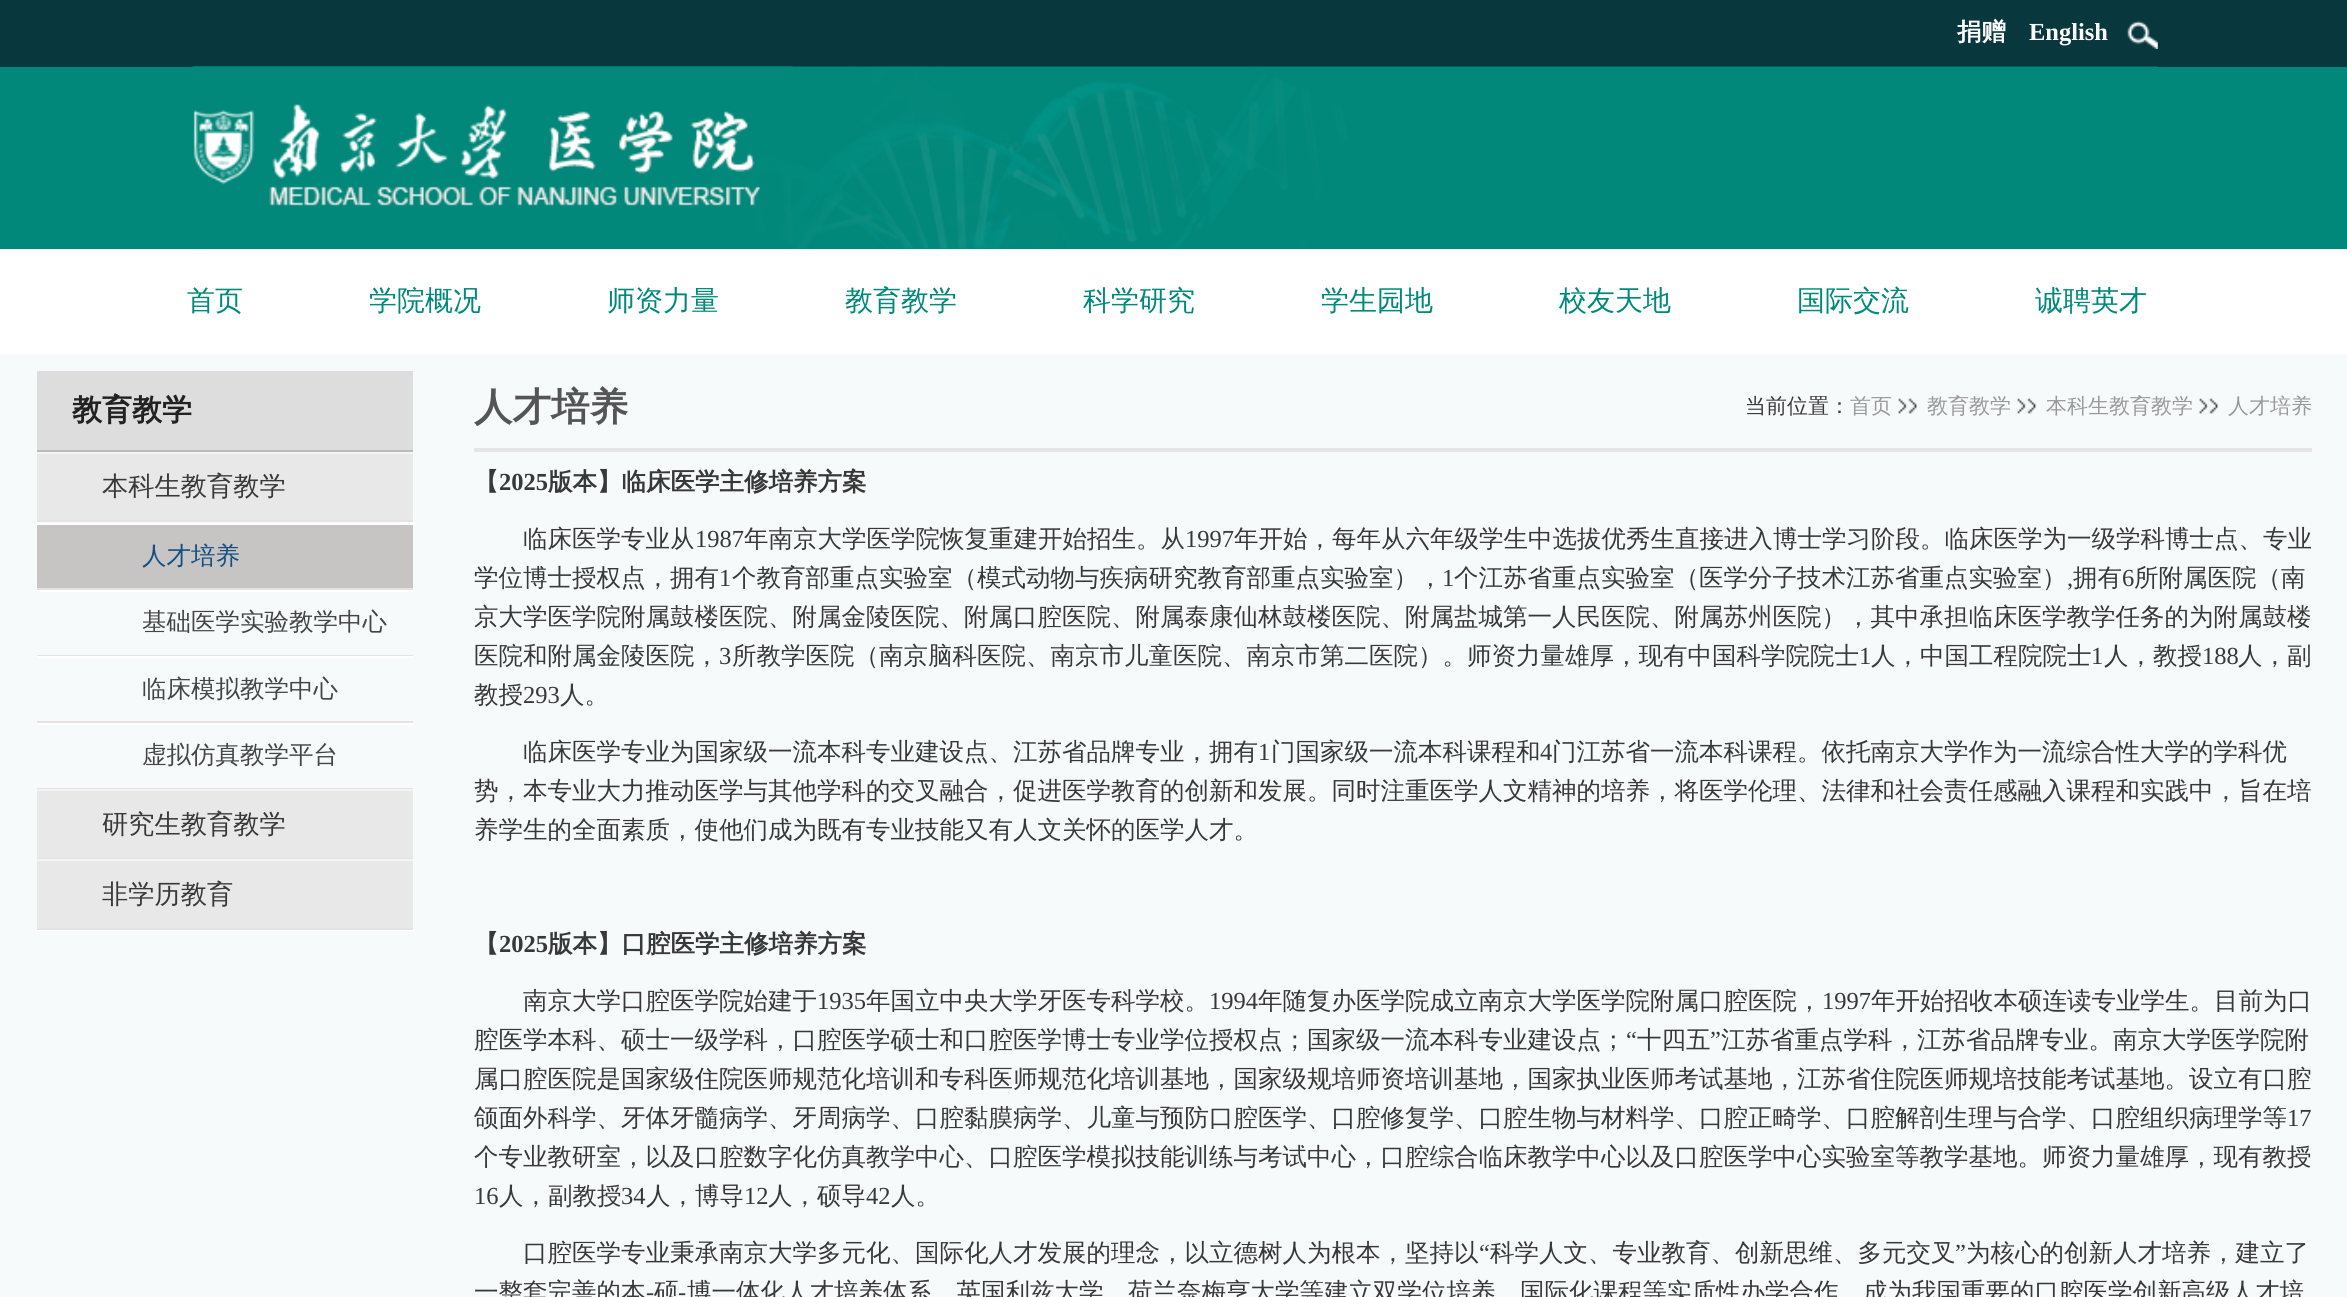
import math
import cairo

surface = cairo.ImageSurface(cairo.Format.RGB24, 2347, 1297)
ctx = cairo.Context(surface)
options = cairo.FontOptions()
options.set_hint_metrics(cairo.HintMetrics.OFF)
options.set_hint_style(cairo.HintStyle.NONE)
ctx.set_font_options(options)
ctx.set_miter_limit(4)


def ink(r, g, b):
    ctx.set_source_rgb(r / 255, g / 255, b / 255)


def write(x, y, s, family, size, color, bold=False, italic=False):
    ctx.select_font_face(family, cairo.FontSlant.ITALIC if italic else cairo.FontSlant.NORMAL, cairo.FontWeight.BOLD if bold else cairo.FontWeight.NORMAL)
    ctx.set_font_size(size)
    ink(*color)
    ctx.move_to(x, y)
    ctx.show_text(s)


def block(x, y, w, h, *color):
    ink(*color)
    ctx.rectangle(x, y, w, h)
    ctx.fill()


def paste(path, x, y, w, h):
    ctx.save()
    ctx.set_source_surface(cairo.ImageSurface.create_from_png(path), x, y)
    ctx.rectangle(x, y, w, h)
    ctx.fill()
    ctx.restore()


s1 = dict(family="WenQuanYi Zen Hei", size=24.5, color=(255, 255, 255), bold=True)
s2 = dict(family="Liberation Serif", size=24.5, color=(255, 255, 255), bold=True)
s3 = dict(family="WenQuanYi Zen Hei Medium", size=28, color=(0, 136, 122))
s4 = dict(family="WenQuanYi Zen Hei", size=30, color=(34, 34, 34), bold=True)
s5 = dict(family="WenQuanYi Zen Hei Medium", size=26.25, color=(56, 56, 56))
s6 = dict(family="WenQuanYi Zen Hei Medium", size=24.5, color=(18, 77, 131))
s7 = dict(family="WenQuanYi Zen Hei Medium", size=24.5, color=(69, 69, 69))
s8 = dict(family="WenQuanYi Zen Hei", size=38.5, color=(85, 85, 85), bold=True)
s9 = dict(family="WenQuanYi Zen Hei Medium", size=21, color=(56, 56, 56))
s10 = dict(family="WenQuanYi Zen Hei Medium", size=21, color=(153, 153, 153))
s11 = dict(family="WenQuanYi Zen Hei", size=24.5, color=(56, 56, 56), bold=True)
s12 = dict(family="Liberation Serif", size=24.5, color=(56, 56, 56), bold=True)
s13 = dict(family="WenQuanYi Zen Hei Medium", size=24.5, color=(56, 56, 56))
s14 = dict(family="Liberation Serif", size=24.5, color=(56, 56, 56))

ink(255, 255, 255)
ctx.paint()
block(0, 0, 2347, 67, 9, 55, 62)
write(1957, 40, "捐赠", **s1)
write(2029, 40, "English", **s2)
paste("pic1.png", 2127, 20, 31, 29)
block(0, 67, 2347, 182, 1, 136, 122)
paste("pic2.png", 192, 66, 1966, 183)
paste("pic3.png", 192, 66, 601, 140)
write(187, 310, "首页", **s3)
write(369, 310, "学院概况", **s3)
write(607, 310, "师资力量", **s3)
write(845, 310, "教育教学", **s3)
write(1083, 310, "科学研究", **s3)
write(1321, 310, "学生园地", **s3)
write(1559, 310, "校友天地", **s3)
write(1797, 310, "国际交流", **s3)
write(2035, 310, "诚聘英才", **s3)
block(0, 354, 2347, 943, 247, 250, 250)
block(37, 371, 376, 79, 221, 221, 221)
write(72, 420, "教育教学", **s4)
block(37, 450, 376, 2, 187, 187, 187)
block(37, 930, 376, 1, 255, 255, 255)
block(37, 454, 376, 66, 232, 232, 232)
block(37, 452, 376, 2, 244, 244, 244)
block(37, 520, 376, 2, 227, 227, 227)
write(102, 495, "本科生教育教学", **s5)
block(37, 522, 376, 3, 255, 255, 255)
block(37, 525, 376, 63, 199, 196, 196)
block(37, 588, 376, 2, 232, 225, 225)
write(142, 564, "人才培养", **s6)
block(37, 590, 376, 2, 255, 255, 255)
block(37, 655, 376, 1, 232, 225, 225)
write(142, 630, "基础医学实验教学中心", **s7)
block(37, 656, 376, 2, 255, 255, 255)
block(37, 721, 376, 2, 232, 225, 225)
write(142, 697, "临床模拟教学中心", **s7)
block(37, 723, 376, 2, 255, 255, 255)
block(37, 788, 376, 1, 232, 225, 225)
write(142, 763, "虚拟仿真教学平台", **s7)
block(37, 791, 376, 67, 232, 232, 232)
block(37, 789, 376, 2, 244, 244, 244)
block(37, 858, 376, 1, 227, 227, 227)
write(102, 833, "研究生教育教学", **s5)
block(37, 861, 376, 67, 232, 232, 232)
block(37, 859, 376, 2, 244, 244, 244)
block(37, 928, 376, 2, 227, 227, 227)
write(102, 903, "非学历教育", **s5)
block(474, 448, 1838, 4, 229, 229, 229)
write(474, 420, "人才培养", **s8)
write(1745, 413, "当前位置：", **s9)
write(1850, 413, "首页", **s10)
paste("pic4.png", 1897, 397, 21, 17)
write(1927, 413, "教育教学", **s10)
paste("pic4.png", 2016, 397, 21, 17)
write(2046, 413, "本科生教育教学", **s10)
paste("pic5.png", 2198, 397, 21, 17)
write(2228, 413, "人才培养", **s10)
write(474, 490, "【", **s11)
write(499, 490, "2025", **s12)
write(548, 490, "版本】临床医学主修培养方案", **s11)
write(523, 547, "临床医学专业从", **s13)
write(695, 547, "1987", **s14)
write(744, 547, "年南京大学医学院恢复重建开始招生。从", **s13)
write(1185, 547, "1997", **s14)
write(1234, 547, "年开始，每年从六年级学生中选拔优秀生直接进入博士学习阶段。临床医学为一级学科博士点、专业", **s13)
write(474, 586, "学位博士授权点，拥有", **s13)
write(719, 586, "1", **s14)
write(732, 586, "个教育部重点实验室（模式动物与疾病研究教育部重点实验室），", **s13)
write(1442, 586, "1", **s14)
write(1454, 586, "个江苏省重点实验室（医学分子技术江苏省重点实验室）", **s13)
write(2067, 586, ",", **s14)
write(2073, 586, "拥有", **s13)
write(2122, 586, "6", **s14)
write(2134, 586, "所附属医院（南", **s13)
write(474, 625, "京大学医学院附属鼓楼医院、附属金陵医院、附属口腔医院、附属泰康仙林鼓楼医院、附属盐城第一人民医院、附属苏州医院），其中承担临床医学教学任务的为附属鼓楼", **s13)
write(474, 664, "医院和附属金陵医院，", **s13)
write(719, 664, "3", **s14)
write(732, 664, "所教学医院（南京脑科医院、南京市儿童医院、南京市第二医院）。师资力量雄厚，现有中国科学院院士", **s13)
write(1859, 664, "1", **s14)
write(1871, 664, "人，中国工程院院士", **s13)
write(2091, 664, "1", **s14)
write(2104, 664, "人，教授", **s13)
write(2202, 664, "188", **s14)
write(2238, 664, "人，副", **s13)
write(474, 703, "教授", **s13)
write(523, 703, "293", **s14)
write(560, 703, "人。", **s13)
write(523, 760, "临床医学专业为国家级一流本科专业建设点、江苏省品牌专业，拥有", **s13)
write(1258, 760, "1", **s14)
write(1271, 760, "门国家级一流本科课程和", **s13)
write(1540, 760, "4", **s14)
write(1552, 760, "门江苏省一流本科课程。依托南京大学作为一流综合性大学的学科优", **s13)
write(474, 799, "势，本专业大力推动医学与其他学科的交叉融合，促进医学教育的创新和发展。同时注重医学人文精神的培养，将医学伦理、法律和社会责任感融入课程和实践中，旨在培", **s13)
write(474, 838, "养学生的全面素质，使他们成为既有专业技能又有人文关怀的医学人才。", **s13)
write(474, 952, "【", **s11)
write(499, 952, "2025", **s12)
write(548, 952, "版本】口腔医学主修培养方案", **s11)
write(523, 1009, "南京大学口腔医学院始建于", **s13)
write(817, 1009, "1935", **s14)
write(866, 1009, "年国立中央大学牙医专科学校。", **s13)
write(1209, 1009, "1994", **s14)
write(1258, 1009, "年随复办医学院成立南京大学医学院附属口腔医院，", **s13)
write(1822, 1009, "1997", **s14)
write(1871, 1009, "年开始招收本硕连读专业学生。目前为口", **s13)
write(474, 1048, "腔医学本科、硕士一级学科，口腔医学硕士和口腔医学博士专业学位授权点；国家级一流本科专业建设点；", **s13)
write(1626, 1048, "“", **s14)
write(1637, 1048, "十四五", **s13)
write(1710, 1048, "”", **s14)
write(1721, 1048, "江苏省重点学科，江苏省品牌专业。南京大学医学院附", **s13)
write(474, 1087, "属口腔医院是国家级住院医师规范化培训和专科医师规范化培训基地，国家级规培师资培训基地，国家执业医师考试基地，江苏省住院医师规培技能考试基地。设立有口腔", **s13)
write(474, 1126, "颌面外科学、牙体牙髓病学、牙周病学、口腔黏膜病学、儿童与预防口腔医学、口腔修复学、口腔生物与材料学、口腔正畸学、口腔解剖生理与合学、口腔组织病理学等", **s13)
write(2287, 1126, "17", **s14)
write(474, 1165, "个专业教研室，以及口腔数字化仿真教学中心、口腔医学模拟技能训练与考试中心，口腔综合临床教学中心以及口腔医学中心实验室等教学基地。师资力量雄厚，现有教授", **s13)
write(474, 1204, "16", **s14)
write(499, 1204, "人，副教授", **s13)
write(621, 1204, "34", **s14)
write(646, 1204, "人，博导", **s13)
write(744, 1204, "12", **s14)
write(768, 1204, "人，硕导", **s13)
write(866, 1204, "42", **s14)
write(891, 1204, "人。", **s13)
write(523, 1261, "口腔医学专业秉承南京大学多元化、国际化人才发展的理念，以立德树人为根本，坚持以", **s13)
write(1479, 1261, "“", **s14)
write(1490, 1261, "科学人文、专业教育、创新思维、多元交叉", **s13)
write(1955, 1261, "”", **s14)
write(1966, 1261, "为核心的创新人才培养，建立了", **s13)
write(474, 1300, "一整套完善的本", **s13)
write(646, 1300, "-", **s14)
write(654, 1300, "硕", **s13)
write(678, 1300, "-", **s14)
write(687, 1300, "博一体化人才培养体系，英国利兹大学、荷兰奈梅亨大学等建立双学位培养、国际化课程等实质性办学合作，成为我国重要的口腔医学创新高级人才培", **s13)
surface.write_to_png("screenshot.png")
